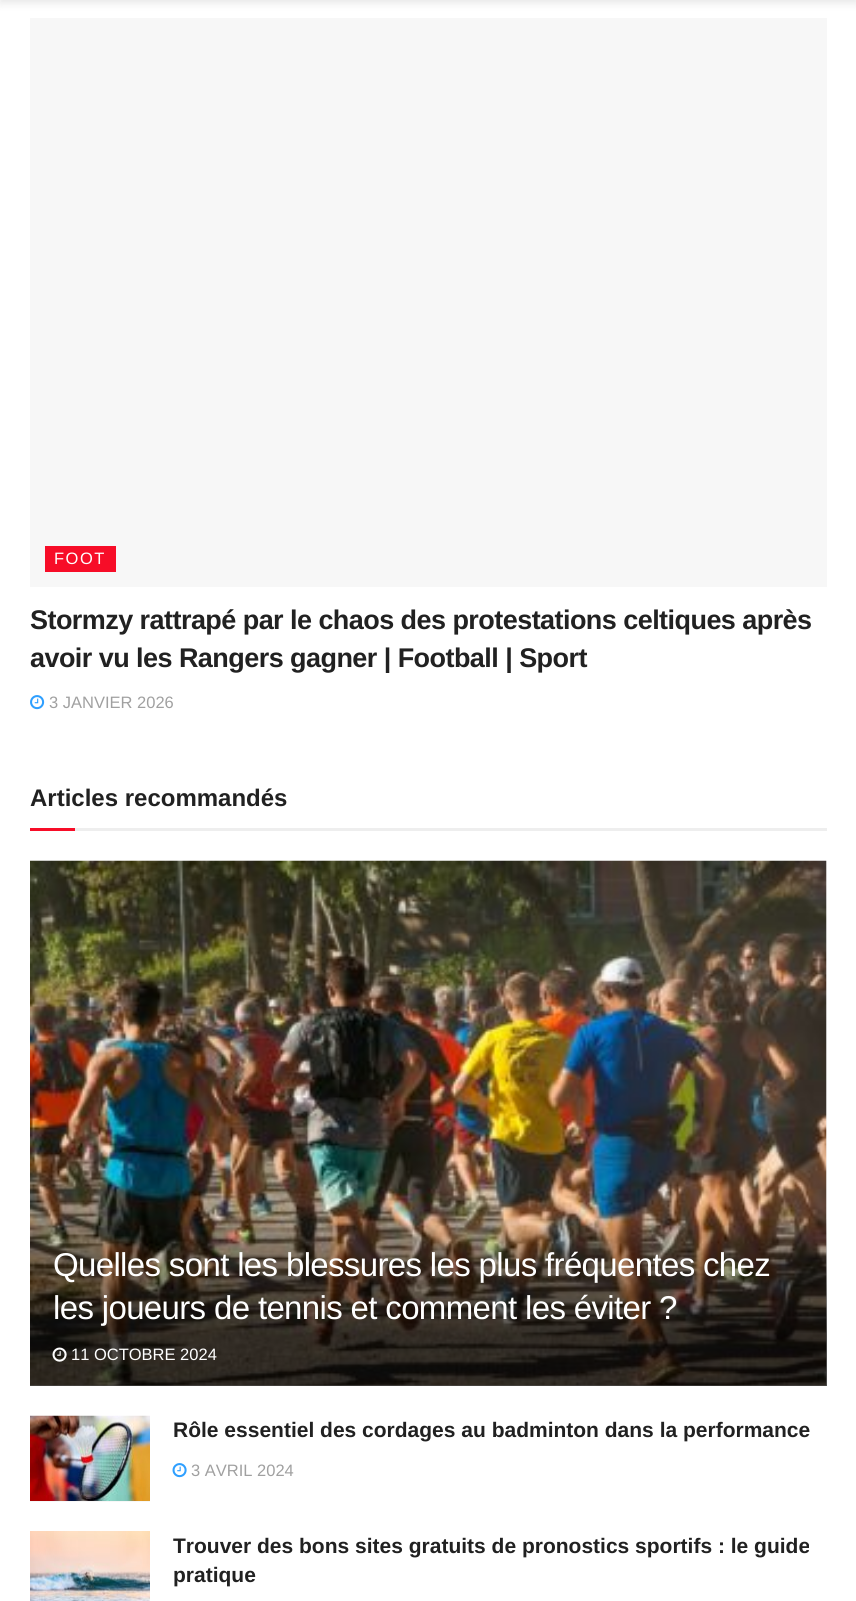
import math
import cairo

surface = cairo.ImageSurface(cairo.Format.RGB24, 856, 1601)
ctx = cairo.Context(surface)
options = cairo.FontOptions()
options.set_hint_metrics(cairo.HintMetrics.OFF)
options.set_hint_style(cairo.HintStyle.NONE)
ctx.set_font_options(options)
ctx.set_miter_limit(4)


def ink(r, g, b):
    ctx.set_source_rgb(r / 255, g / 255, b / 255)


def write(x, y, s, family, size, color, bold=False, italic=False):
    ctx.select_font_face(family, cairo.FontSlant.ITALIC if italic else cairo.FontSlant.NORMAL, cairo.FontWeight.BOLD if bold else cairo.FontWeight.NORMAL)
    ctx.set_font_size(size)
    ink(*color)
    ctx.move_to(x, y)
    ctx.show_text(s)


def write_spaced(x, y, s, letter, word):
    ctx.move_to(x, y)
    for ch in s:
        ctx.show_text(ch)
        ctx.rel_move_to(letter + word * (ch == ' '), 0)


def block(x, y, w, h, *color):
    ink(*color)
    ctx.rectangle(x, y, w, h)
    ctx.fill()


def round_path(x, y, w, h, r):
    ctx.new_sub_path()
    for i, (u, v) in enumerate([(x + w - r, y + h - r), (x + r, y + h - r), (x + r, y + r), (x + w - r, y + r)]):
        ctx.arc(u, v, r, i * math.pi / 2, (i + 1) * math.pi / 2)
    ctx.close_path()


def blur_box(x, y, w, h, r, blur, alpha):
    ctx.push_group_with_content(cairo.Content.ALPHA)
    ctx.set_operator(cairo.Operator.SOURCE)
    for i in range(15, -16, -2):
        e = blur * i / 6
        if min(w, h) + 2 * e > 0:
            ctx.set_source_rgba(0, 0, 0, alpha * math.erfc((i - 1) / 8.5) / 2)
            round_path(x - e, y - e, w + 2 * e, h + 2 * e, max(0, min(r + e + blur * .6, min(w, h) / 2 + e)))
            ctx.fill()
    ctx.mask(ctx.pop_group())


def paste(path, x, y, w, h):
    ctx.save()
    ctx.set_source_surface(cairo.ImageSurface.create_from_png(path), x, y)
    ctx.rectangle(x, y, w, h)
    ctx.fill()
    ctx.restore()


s1 = dict(family="Liberation Sans", size=16.5, color=(160, 160, 160))
s2 = dict(family="Liberation Sans", size=24, color=(33, 33, 33), bold=True)
s3 = dict(family="Liberation Sans", size=16.5, color=(255, 255, 255))
s4 = dict(family="Liberation Sans", size=21, color=(33, 33, 33), bold=True)

ink(255, 255, 255)
ctx.paint()
ink(0, 0, 0)
blur_box(0, -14, 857, 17, 0, 4.5, 0.1)
block(30, 18, 797, 569, 247, 247, 247)
block(45, 546, 71, 26, 247, 13, 40)
ctx.select_font_face("Liberation Sans")
ctx.set_font_size(16.5)
ink(255, 255, 255)
write_spaced(54, 564, "FOOT", 1.5, 0)
ctx.select_font_face("Liberation Sans", cairo.FontSlant.NORMAL, cairo.FontWeight.BOLD)
ctx.set_font_size(27)
ink(33, 33, 33)
write_spaced(30, 629, "Stormzy rattrapé par le chaos des protestations celtiques après", -0.55, 0)
write_spaced(30, 667, "avoir vu les Rangers gagner | Football | Sport", -0.55, 0)
paste("pic1.png", 30, 695, 15, 15)
write(49, 708, "3 JANVIER 2026", **s1)
block(75, 828, 752, 3, 238, 238, 238)
write(30, 806, "Articles recommandés", **s2)
block(30, 828, 45, 3, 247, 13, 40)
block(30, 861, 797, 525, 247, 247, 247)
paste("pic3.png", 230, 860, 158, 526)
paste("pic2.png", 30, 860, 797, 526)
gradient = cairo.LinearGradient(428, 1215, 428, 1386)
gradient.add_color_stop_rgba(0, 0, 0, 0, 0)
gradient.add_color_stop_rgba(0.7, 0, 0, 0, 0.65)
ctx.set_source(gradient)
ctx.rectangle(30, 1219, 797, 167)
ctx.fill()
ctx.select_font_face("Liberation Sans")
ctx.set_font_size(33)
ink(255, 255, 255)
write_spaced(53, 1276, "Quelles sont les blessures les plus fréquentes chez", -0.65, 0)
write_spaced(53, 1319, "les joueurs de tennis et comment les éviter ?", -0.65, 0)
paste("pic4.png", 52, 1347, 15, 15)
write(71, 1360, "11 OCTOBRE 2024", **s3)
block(30, 1501, 120, 1, 247, 247, 247)
paste("pic5.png", 30, 1415, 120, 86)
write(173, 1437, "Rôle essentiel des cordages au badminton dans la performance", **s4)
paste("pic6.png", 172, 1463, 15, 15)
write(191, 1476, "3 AVRIL 2024", **s1)
paste("pic7.png", 30, 1531, 120, 70)
write(173, 1553, "Trouver des bons sites gratuits de pronostics sportifs : le guide", **s4)
write(173, 1582, "pratique", **s4)
surface.write_to_png("screenshot.png")
